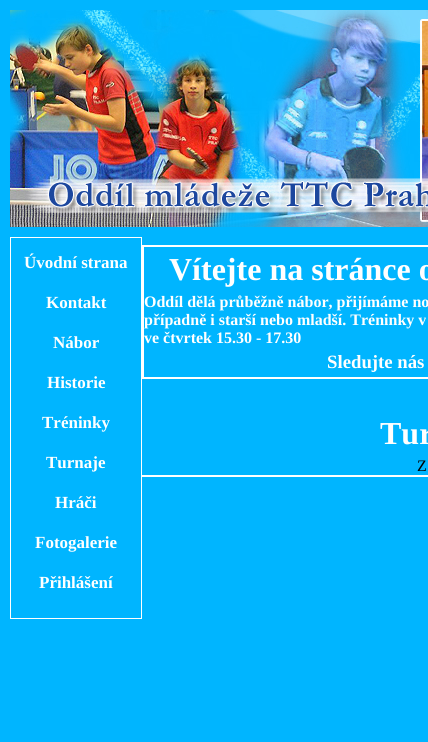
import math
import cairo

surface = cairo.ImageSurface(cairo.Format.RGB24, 428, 742)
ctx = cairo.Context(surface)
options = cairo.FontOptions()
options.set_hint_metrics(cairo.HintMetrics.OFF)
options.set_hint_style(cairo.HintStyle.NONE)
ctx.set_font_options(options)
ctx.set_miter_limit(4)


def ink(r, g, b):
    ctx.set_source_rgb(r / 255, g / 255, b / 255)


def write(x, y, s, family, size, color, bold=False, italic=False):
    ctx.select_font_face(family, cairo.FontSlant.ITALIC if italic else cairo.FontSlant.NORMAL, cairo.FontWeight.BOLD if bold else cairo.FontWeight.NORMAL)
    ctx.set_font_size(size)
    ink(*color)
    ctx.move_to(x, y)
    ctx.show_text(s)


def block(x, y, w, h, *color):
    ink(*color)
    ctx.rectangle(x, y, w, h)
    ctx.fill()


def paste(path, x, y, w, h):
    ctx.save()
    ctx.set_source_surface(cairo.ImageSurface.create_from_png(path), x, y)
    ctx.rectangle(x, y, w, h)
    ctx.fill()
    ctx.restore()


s1 = dict(family="Liberation Serif", size=17, color=(255, 255, 255), bold=True)
s2 = dict(family="Liberation Serif", size=32, color=(255, 255, 255), bold=True)
s3 = dict(family="Liberation Serif", size=16, color=(255, 255, 255), bold=True)
s4 = dict(family="Liberation Serif", size=18.75, color=(255, 255, 255), bold=True)
s5 = dict(family="Liberation Serif", size=16, color=(0, 0, 0))

ink(0, 181, 255)
ctx.paint()
paste("pic1.png", 10, 10, 418, 217)
ctx.rectangle(10.5, 237.5, 131, 381)
ink(255, 255, 255)
ctx.set_line_width(1)
ctx.stroke()
write(24, 268, "Úvodní strana", **s1)
write(46, 308, "Kontakt", **s1)
write(53, 348, "Nábor", **s1)
write(47, 388, "Historie", **s1)
write(42, 428, "Tréninky", **s1)
write(46, 468, "Turnaje", **s1)
write(55, 508, "Hráči", **s1)
write(35, 548, "Fotogalerie", **s1)
write(39, 588, "Přihlášení", **s1)
ctx.rectangle(142.5, 245.5, 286, 133)
ctx.stroke()
ctx.rectangle(143.5, 246.5, 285, 131)
ctx.stroke()
write(169, 280, "Vítejte na stránce o", **s2)
write(144, 307, "Oddíl dělá průběžně nábor, přijímáme no", **s3)
write(144, 325, "případně i starší nebo mladší. Tréninky v", **s3)
write(144, 343, "ve čtvrtek 15.30 - 17.30", **s3)
write(327, 368, "Sledujte nás", **s4)
write(380, 444, "Tur", **s2)
write(417, 471, "Z", **s5)
block(142, 475, 286, 2, 255, 255, 255)
surface.write_to_png("screenshot.png")
